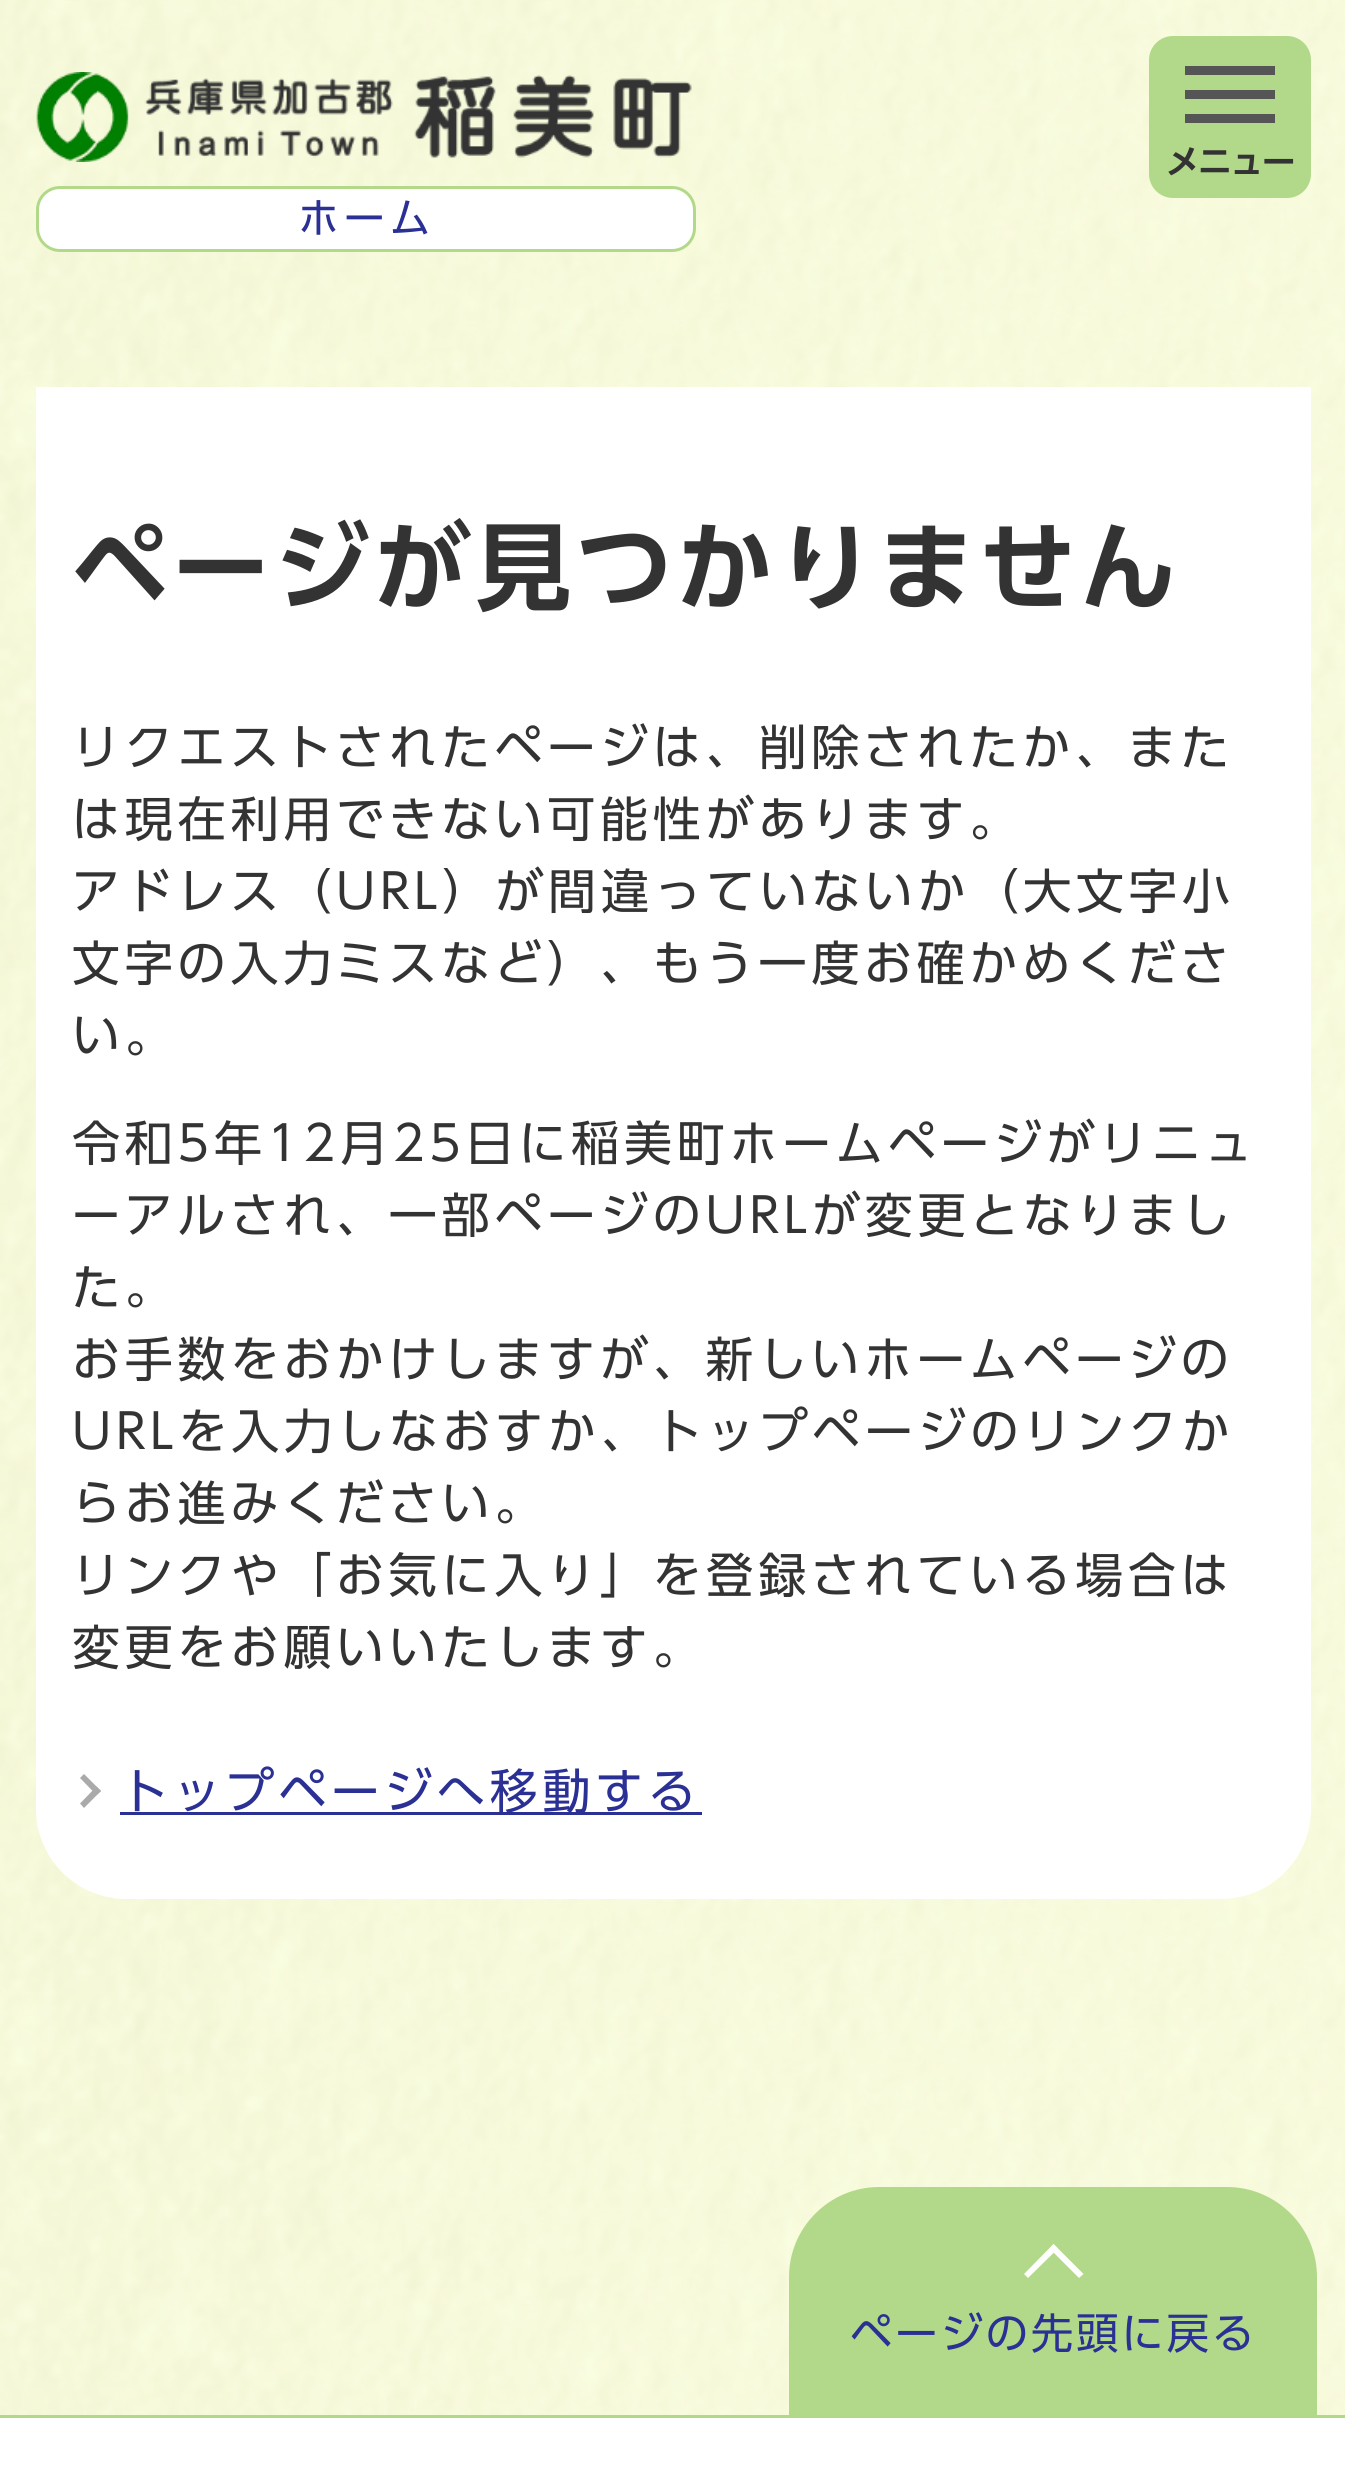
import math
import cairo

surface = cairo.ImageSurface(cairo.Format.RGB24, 1345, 2487)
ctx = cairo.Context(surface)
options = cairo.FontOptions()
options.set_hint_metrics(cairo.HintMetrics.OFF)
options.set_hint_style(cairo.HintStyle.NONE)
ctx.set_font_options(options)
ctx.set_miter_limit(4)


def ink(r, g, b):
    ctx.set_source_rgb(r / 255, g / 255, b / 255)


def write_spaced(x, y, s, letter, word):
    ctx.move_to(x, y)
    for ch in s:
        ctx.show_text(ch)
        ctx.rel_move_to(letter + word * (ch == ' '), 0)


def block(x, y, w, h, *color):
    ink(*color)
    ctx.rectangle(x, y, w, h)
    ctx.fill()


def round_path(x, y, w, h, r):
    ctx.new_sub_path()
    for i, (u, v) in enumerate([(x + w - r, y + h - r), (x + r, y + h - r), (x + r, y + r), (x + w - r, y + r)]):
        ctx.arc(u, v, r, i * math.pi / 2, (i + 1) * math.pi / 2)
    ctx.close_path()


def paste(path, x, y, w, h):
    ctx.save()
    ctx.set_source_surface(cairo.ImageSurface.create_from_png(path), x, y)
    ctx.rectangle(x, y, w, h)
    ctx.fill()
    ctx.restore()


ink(255, 255, 255)
ctx.paint()
paste("pic1.png", 0, 0, 1345, 2415)
ink(178, 217, 137)
round_path(1149, 36, 162, 162, 24)
ctx.fill()
block(1185, 66, 90, 9, 85, 85, 85)
block(1185, 90, 90, 9, 85, 85, 85)
block(1185, 114, 90, 9, 85, 85, 85)
ctx.select_font_face("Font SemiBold")
ctx.set_font_size(33.5)
ink(51, 51, 51)
write_spaced(1166, 174, "メニュー", -1.5, 0)
paste("pic2.png", 36, 72, 656, 90)
ink(255, 255, 255)
round_path(37.5, 187.5, 657, 63, 22.5)
ctx.fill_preserve()
ink(178, 217, 137)
ctx.set_line_width(3)
ctx.stroke()
ctx.select_font_face("Font")
ctx.set_font_size(41)
ink(43, 48, 149)
write_spaced(298, 233, "ホーム", 4.8, 0)
ink(255, 255, 255)
ctx.new_path()
ctx.move_to(36, 387)
ctx.line_to(1311, 387)
ctx.line_to(1311, 1809)
ctx.curve_to(1311, 1858.5, 1270.5, 1899, 1221, 1899)
ctx.line_to(126, 1899)
ctx.curve_to(76.5, 1899, 36, 1858.5, 36, 1809)
ctx.close_path()
ctx.fill()
ctx.select_font_face("Font SemiBold")
ctx.set_font_size(96)
ink(51, 51, 51)
write_spaced(72, 603, "ページが見つかりません", 4.8, 0)
ctx.select_font_face("Font")
ctx.set_font_size(48)
write_spaced(72, 765, "リクエストされたページは、削除されたか、また", 4.8, 0)
write_spaced(72, 837, "は現在利用できない可能性があります。", 4.8, 0)
write_spaced(72, 909, "アドレス（URL）が間違っていないか（大文字小", 4.8, 0)
write_spaced(72, 981, "文字の入力ミスなど）、もう一度お確かめくださ", 4.8, 0)
write_spaced(72, 1053, "い。", 4.8, 0)
write_spaced(72, 1161, "令和5年12月25日に稲美町ホームページがリニュ", 4.8, 0)
write_spaced(72, 1233, "ーアルされ、一部ページのURLが変更となりまし", 4.8, 0)
write_spaced(72, 1305, "た。", 4.8, 0)
write_spaced(72, 1377, "お手数をおかけしますが、新しいホームページの", 4.8, 0)
write_spaced(72, 1449, "URLを入力しなおすか、トップページのリンクか", 4.8, 0)
write_spaced(72, 1521, "らお進みください。", 4.8, 0)
write_spaced(72, 1593, "リンクや「お気に入り」を登録されている場合は", 4.8, 0)
write_spaced(72, 1665, "変更をお願いいたします。", 4.8, 0)
ink(170, 170, 170)
ctx.new_path()
ctx.move_to(80, 1778)
ctx.line_to(84, 1774)
ctx.line_to(101, 1791)
ctx.line_to(96.5, 1795)
ctx.close_path()
ctx.fill()
ctx.new_path()
ctx.move_to(80, 1803.5)
ctx.line_to(96.5, 1786.5)
ctx.line_to(101, 1791)
ctx.line_to(84, 1808)
ctx.close_path()
ctx.fill()
block(120, 1812, 582, 3, 43, 48, 149)
write_spaced(120, 1809, "トップページへ移動する", 4.8, 0)
ink(178, 217, 137)
ctx.new_path()
ctx.move_to(879, 2187)
ctx.line_to(1227, 2187)
ctx.curve_to(1276.5, 2187, 1317, 2227.5, 1317, 2277)
ctx.line_to(1317, 2415)
ctx.line_to(789, 2415)
ctx.line_to(789, 2277)
ctx.curve_to(789, 2227.5, 829.5, 2187, 879, 2187)
ctx.close_path()
ctx.fill()
ink(255, 255, 255)
ctx.new_path()
ctx.move_to(1024, 2274)
ctx.line_to(1053.5, 2244)
ctx.line_to(1058, 2248.5)
ctx.line_to(1028, 2278)
ctx.close_path()
ctx.fill()
ctx.new_path()
ctx.move_to(1049.5, 2248.5)
ctx.line_to(1053.5, 2244)
ctx.line_to(1083.5, 2274)
ctx.line_to(1079, 2278)
ctx.close_path()
ctx.fill()
ctx.set_font_size(42.25)
ink(43, 48, 149)
write_spaced(850, 2349, "ページの先頭に戻る", 3, 0)
block(0, 2415, 1345, 3, 178, 217, 137)
surface.write_to_png("screenshot.png")
